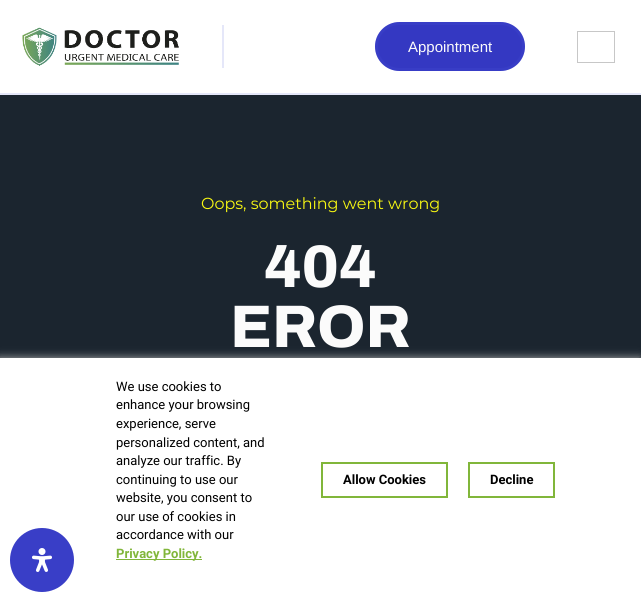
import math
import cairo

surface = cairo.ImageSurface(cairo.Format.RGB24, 641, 602)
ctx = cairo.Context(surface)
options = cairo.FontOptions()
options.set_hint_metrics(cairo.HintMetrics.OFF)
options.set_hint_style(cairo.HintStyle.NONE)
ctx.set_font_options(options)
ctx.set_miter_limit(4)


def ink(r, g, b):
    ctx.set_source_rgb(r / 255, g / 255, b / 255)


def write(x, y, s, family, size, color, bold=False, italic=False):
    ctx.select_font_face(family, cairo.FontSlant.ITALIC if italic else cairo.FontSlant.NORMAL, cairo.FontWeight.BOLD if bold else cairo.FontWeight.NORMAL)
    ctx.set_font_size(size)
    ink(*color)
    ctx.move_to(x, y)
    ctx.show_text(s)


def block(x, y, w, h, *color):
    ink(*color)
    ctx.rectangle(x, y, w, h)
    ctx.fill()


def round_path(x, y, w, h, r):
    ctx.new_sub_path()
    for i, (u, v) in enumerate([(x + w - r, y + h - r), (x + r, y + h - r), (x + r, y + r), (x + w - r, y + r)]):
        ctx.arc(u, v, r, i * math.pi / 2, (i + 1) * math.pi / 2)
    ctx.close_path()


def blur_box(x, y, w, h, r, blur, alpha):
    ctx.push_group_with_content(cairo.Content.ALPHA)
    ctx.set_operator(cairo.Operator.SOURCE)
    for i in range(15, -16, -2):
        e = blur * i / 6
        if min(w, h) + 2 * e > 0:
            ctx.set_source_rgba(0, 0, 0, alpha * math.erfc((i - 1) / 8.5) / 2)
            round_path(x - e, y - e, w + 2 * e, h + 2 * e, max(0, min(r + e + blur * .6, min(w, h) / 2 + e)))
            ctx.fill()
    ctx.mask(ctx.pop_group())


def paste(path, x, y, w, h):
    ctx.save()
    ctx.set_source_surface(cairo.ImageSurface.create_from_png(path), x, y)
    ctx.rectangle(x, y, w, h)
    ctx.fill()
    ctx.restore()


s1 = dict(family="Liberation Sans", size=15, color=(251, 251, 251))
s2 = dict(family="Montserrat", size=16, color=(248, 248, 18))
s3 = dict(family="Archivo ExtraBold", size=60, color=(251, 251, 251))
s4 = dict(family="Roboto", size=13, color=(0, 0, 0))
s5 = dict(family="Roboto", size=13, color=(129, 182, 58), bold=True)
s6 = dict(family="Roboto", size=13, color=(0, 0, 0), bold=True)

ink(255, 255, 255)
ctx.paint()
block(0, 93, 641, 2, 229, 231, 249)
block(222, 25, 2, 43, 229, 231, 249)
paste("pic1.png", 22, 27, 157, 39)
ink(52, 56, 194)
round_path(375, 22, 150, 49, 24.5)
ctx.fill()
round_path(376.5, 23.5, 147, 46, 23)
ctx.set_source_rgba(0.282, 0.318, 0.835, 0.22)
ctx.set_line_width(3)
ctx.stroke()
write(408, 52, "Appointment", **s1)
ctx.rectangle(577.5, 31.5, 37, 31)
ink(199, 199, 199)
ctx.set_line_width(1)
ctx.stroke()
block(0, 95, 641, 263, 27, 37, 47)
write(201, 209, "Oops, something went wrong", **s2)
write(264, 287, "404", **s3)
write(230, 347, "EROR", **s3)
ink(173, 173, 173)
blur_box(-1, 358, 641, 244, 0, 4.5, 1)
block(0, 358, 641, 244, 255, 255, 255)
ink(57, 62, 199)
ctx.arc(42, 560, 32, 0, 2 * math.pi)
ctx.fill()
paste("pic2.png", 32, 548, 20, 24)
write(116, 391, "We use cookies to", **s4)
write(116, 409, "enhance your browsing", **s4)
write(116, 428, "experience, serve", **s4)
write(116, 447, "personalized content, and", **s4)
write(116, 465, "analyze our traffic. By", **s4)
write(116, 484, "continuing to use our", **s4)
write(116, 502, "website, you consent to", **s4)
write(116, 521, "our use of cookies in", **s4)
write(116, 539, "accordance with our", **s4)
block(116, 559, 86, 1, 129, 182, 58)
write(116, 558, "Privacy Policy.", **s5)
ctx.rectangle(322, 463, 125, 34)
ctx.set_line_width(2)
ctx.stroke()
write(343, 484, "Allow Cookies", **s6)
ctx.rectangle(469, 463, 85, 34)
ink(129, 182, 58)
ctx.stroke()
write(490, 484, "Decline", **s6)
surface.write_to_png("screenshot.png")
